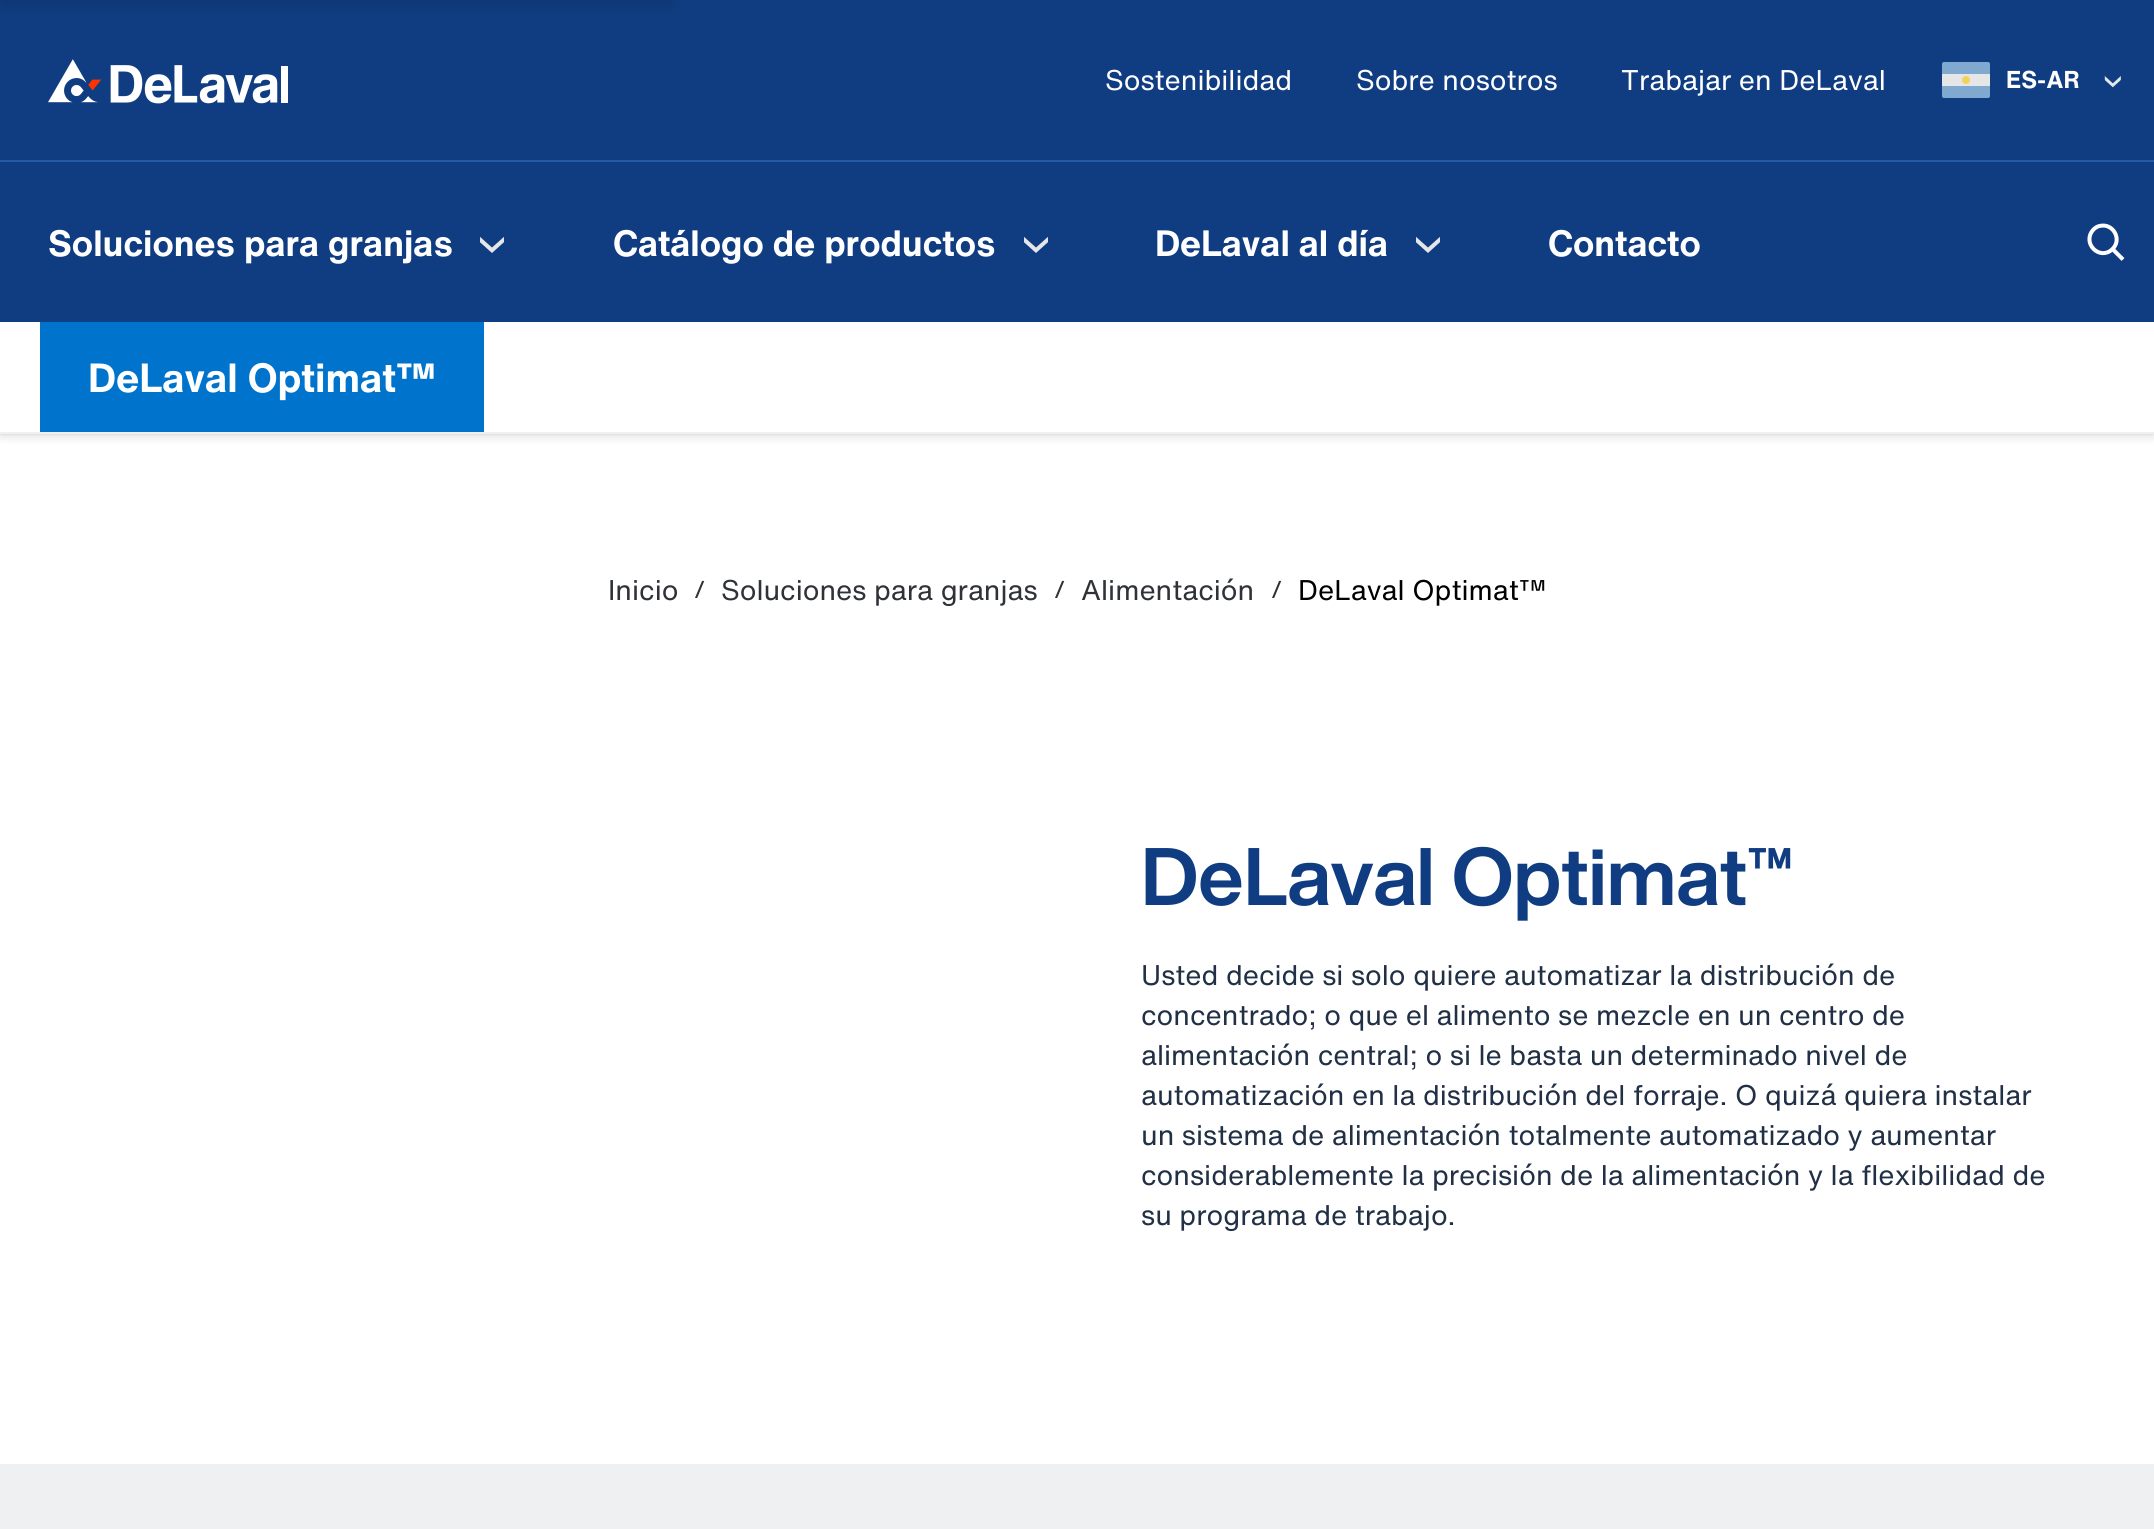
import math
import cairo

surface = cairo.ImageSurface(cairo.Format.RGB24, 2154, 1529)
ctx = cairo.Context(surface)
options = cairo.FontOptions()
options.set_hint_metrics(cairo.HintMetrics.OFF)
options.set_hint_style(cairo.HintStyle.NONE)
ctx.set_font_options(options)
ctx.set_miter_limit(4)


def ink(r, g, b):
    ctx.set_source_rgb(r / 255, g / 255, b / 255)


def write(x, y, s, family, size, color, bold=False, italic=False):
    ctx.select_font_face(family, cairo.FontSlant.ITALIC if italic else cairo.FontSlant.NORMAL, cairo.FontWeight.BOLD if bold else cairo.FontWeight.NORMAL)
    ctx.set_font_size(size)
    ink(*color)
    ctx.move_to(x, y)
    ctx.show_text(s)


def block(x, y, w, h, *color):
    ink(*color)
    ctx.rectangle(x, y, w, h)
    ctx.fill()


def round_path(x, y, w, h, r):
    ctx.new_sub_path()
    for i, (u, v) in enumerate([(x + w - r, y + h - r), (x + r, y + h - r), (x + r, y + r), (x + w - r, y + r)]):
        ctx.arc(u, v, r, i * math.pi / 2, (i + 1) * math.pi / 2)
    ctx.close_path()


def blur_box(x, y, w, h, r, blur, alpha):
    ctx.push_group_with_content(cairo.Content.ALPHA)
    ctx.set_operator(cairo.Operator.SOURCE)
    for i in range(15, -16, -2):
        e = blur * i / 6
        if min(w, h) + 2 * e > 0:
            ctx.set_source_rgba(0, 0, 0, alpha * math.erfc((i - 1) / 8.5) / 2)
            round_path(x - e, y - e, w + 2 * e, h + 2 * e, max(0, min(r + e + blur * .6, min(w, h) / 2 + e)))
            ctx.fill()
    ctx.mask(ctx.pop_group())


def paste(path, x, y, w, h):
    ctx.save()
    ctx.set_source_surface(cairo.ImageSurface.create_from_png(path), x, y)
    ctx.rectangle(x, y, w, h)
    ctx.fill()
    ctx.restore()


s1 = dict(family="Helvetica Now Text", size=28, color=(255, 255, 255))
s2 = dict(family="Helvetica Now Text", size=24, color=(255, 255, 255), bold=True)
s3 = dict(family="Helvetica Now Text", size=36, color=(255, 255, 255), bold=True)
s4 = dict(family="Helvetica Now Text", size=40, color=(255, 255, 255), bold=True)
s5 = dict(family="Helvetica Now Text", size=28, color=(47, 50, 55))
s6 = dict(family="Helvetica Now Text", size=24, color=(47, 50, 55))
s7 = dict(family="Helvetica Now Text", size=28, color=(0, 0, 0))
s8 = dict(family="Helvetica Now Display", size=80, color=(16, 61, 130), bold=True)
s9 = dict(family="Helvetica Now Text", size=28, color=(34, 48, 70))

ink(255, 255, 255)
ctx.paint()
block(0, 0, 2154, 160, 16, 61, 130)
ink(0, 0, 0)
blur_box(0, -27, 672, 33, 0, 9, 0.12)
paste("pic1.png", 48, 59, 240, 45)
write(1105, 90, "Sostenibilidad", **s1)
write(1356, 90, "Sobre nosotros", **s1)
write(1621, 90, "Trabajar en DeLaval", **s1)
paste("pic2.png", 1942, 62, 48, 36)
write(2006, 88, "ES-AR", **s2)
paste("pic3.png", 2104, 75, 17, 13)
block(0, 160, 2154, 2, 38, 89, 168)
ink(0, 0, 0)
blur_box(0, 326, 2154, 112, 0, 4, 0.1)
blur_box(0, 322, 2154, 112, 0, 1, 0.12)
block(0, 162, 2154, 160, 16, 61, 130)
write(48, 256, "Soluciones para granjas", **s3)
paste("pic4.png", 480, 237, 24, 16)
write(613, 256, "Catálogo de productos", **s3)
paste("pic4.png", 1024, 237, 24, 16)
write(1155, 256, "DeLaval al día", **s3)
paste("pic4.png", 1416, 237, 24, 16)
write(1548, 256, "Contacto", **s3)
ctx.new_path()
ctx.move_to(2123, 259.5)
ctx.line_to(2112.5, 249)
ctx.move_to(2112.5, 249)
ctx.curve_to(2122.5, 239.5, 2113, 222.5, 2099.5, 226)
ctx.curve_to(2097, 226.5, 2095, 228, 2093.5, 229.5)
ctx.curve_to(2081, 243, 2100, 261.5, 2112.5, 249)
ctx.close_path()
ctx.set_line_width(4)
ctx.stroke()
block(0, 322, 2154, 110, 255, 255, 255)
block(0, 432, 2154, 2, 239, 240, 241)
block(40, 322, 444, 110, 0, 115, 204)
write(88, 392, "DeLaval Optimat™", **s4)
write(608, 600, "Inicio", **s5)
write(694, 598, "/", **s6)
write(721, 600, "Soluciones para granjas", **s5)
write(1054, 598, "/", **s6)
write(1081, 600, "Alimentación", **s5)
write(1271, 598, "/", **s6)
write(1298, 600, "DeLaval Optimat™", **s7)
write(1141, 905, "DeLaval Optimat™", **s8)
write(1141, 985, "Usted decide si solo quiere automatizar la distribución de", **s9)
write(1141, 1025, "concentrado; o que el alimento se mezcle en un centro de", **s9)
write(1141, 1065, "alimentación central; o si le basta un determinado nivel de", **s9)
write(1141, 1105, "automatización en la distribución del forraje. O quizá quiera instalar", **s9)
write(1141, 1145, "un sistema de alimentación totalmente automatizado y aumentar", **s9)
write(1141, 1185, "considerablemente la precisión de la alimentación y la flexibilidad de", **s9)
write(1141, 1225, "su programa de trabajo.", **s9)
block(0, 1464, 2154, 65, 239, 240, 241)
surface.write_to_png("screenshot.png")
